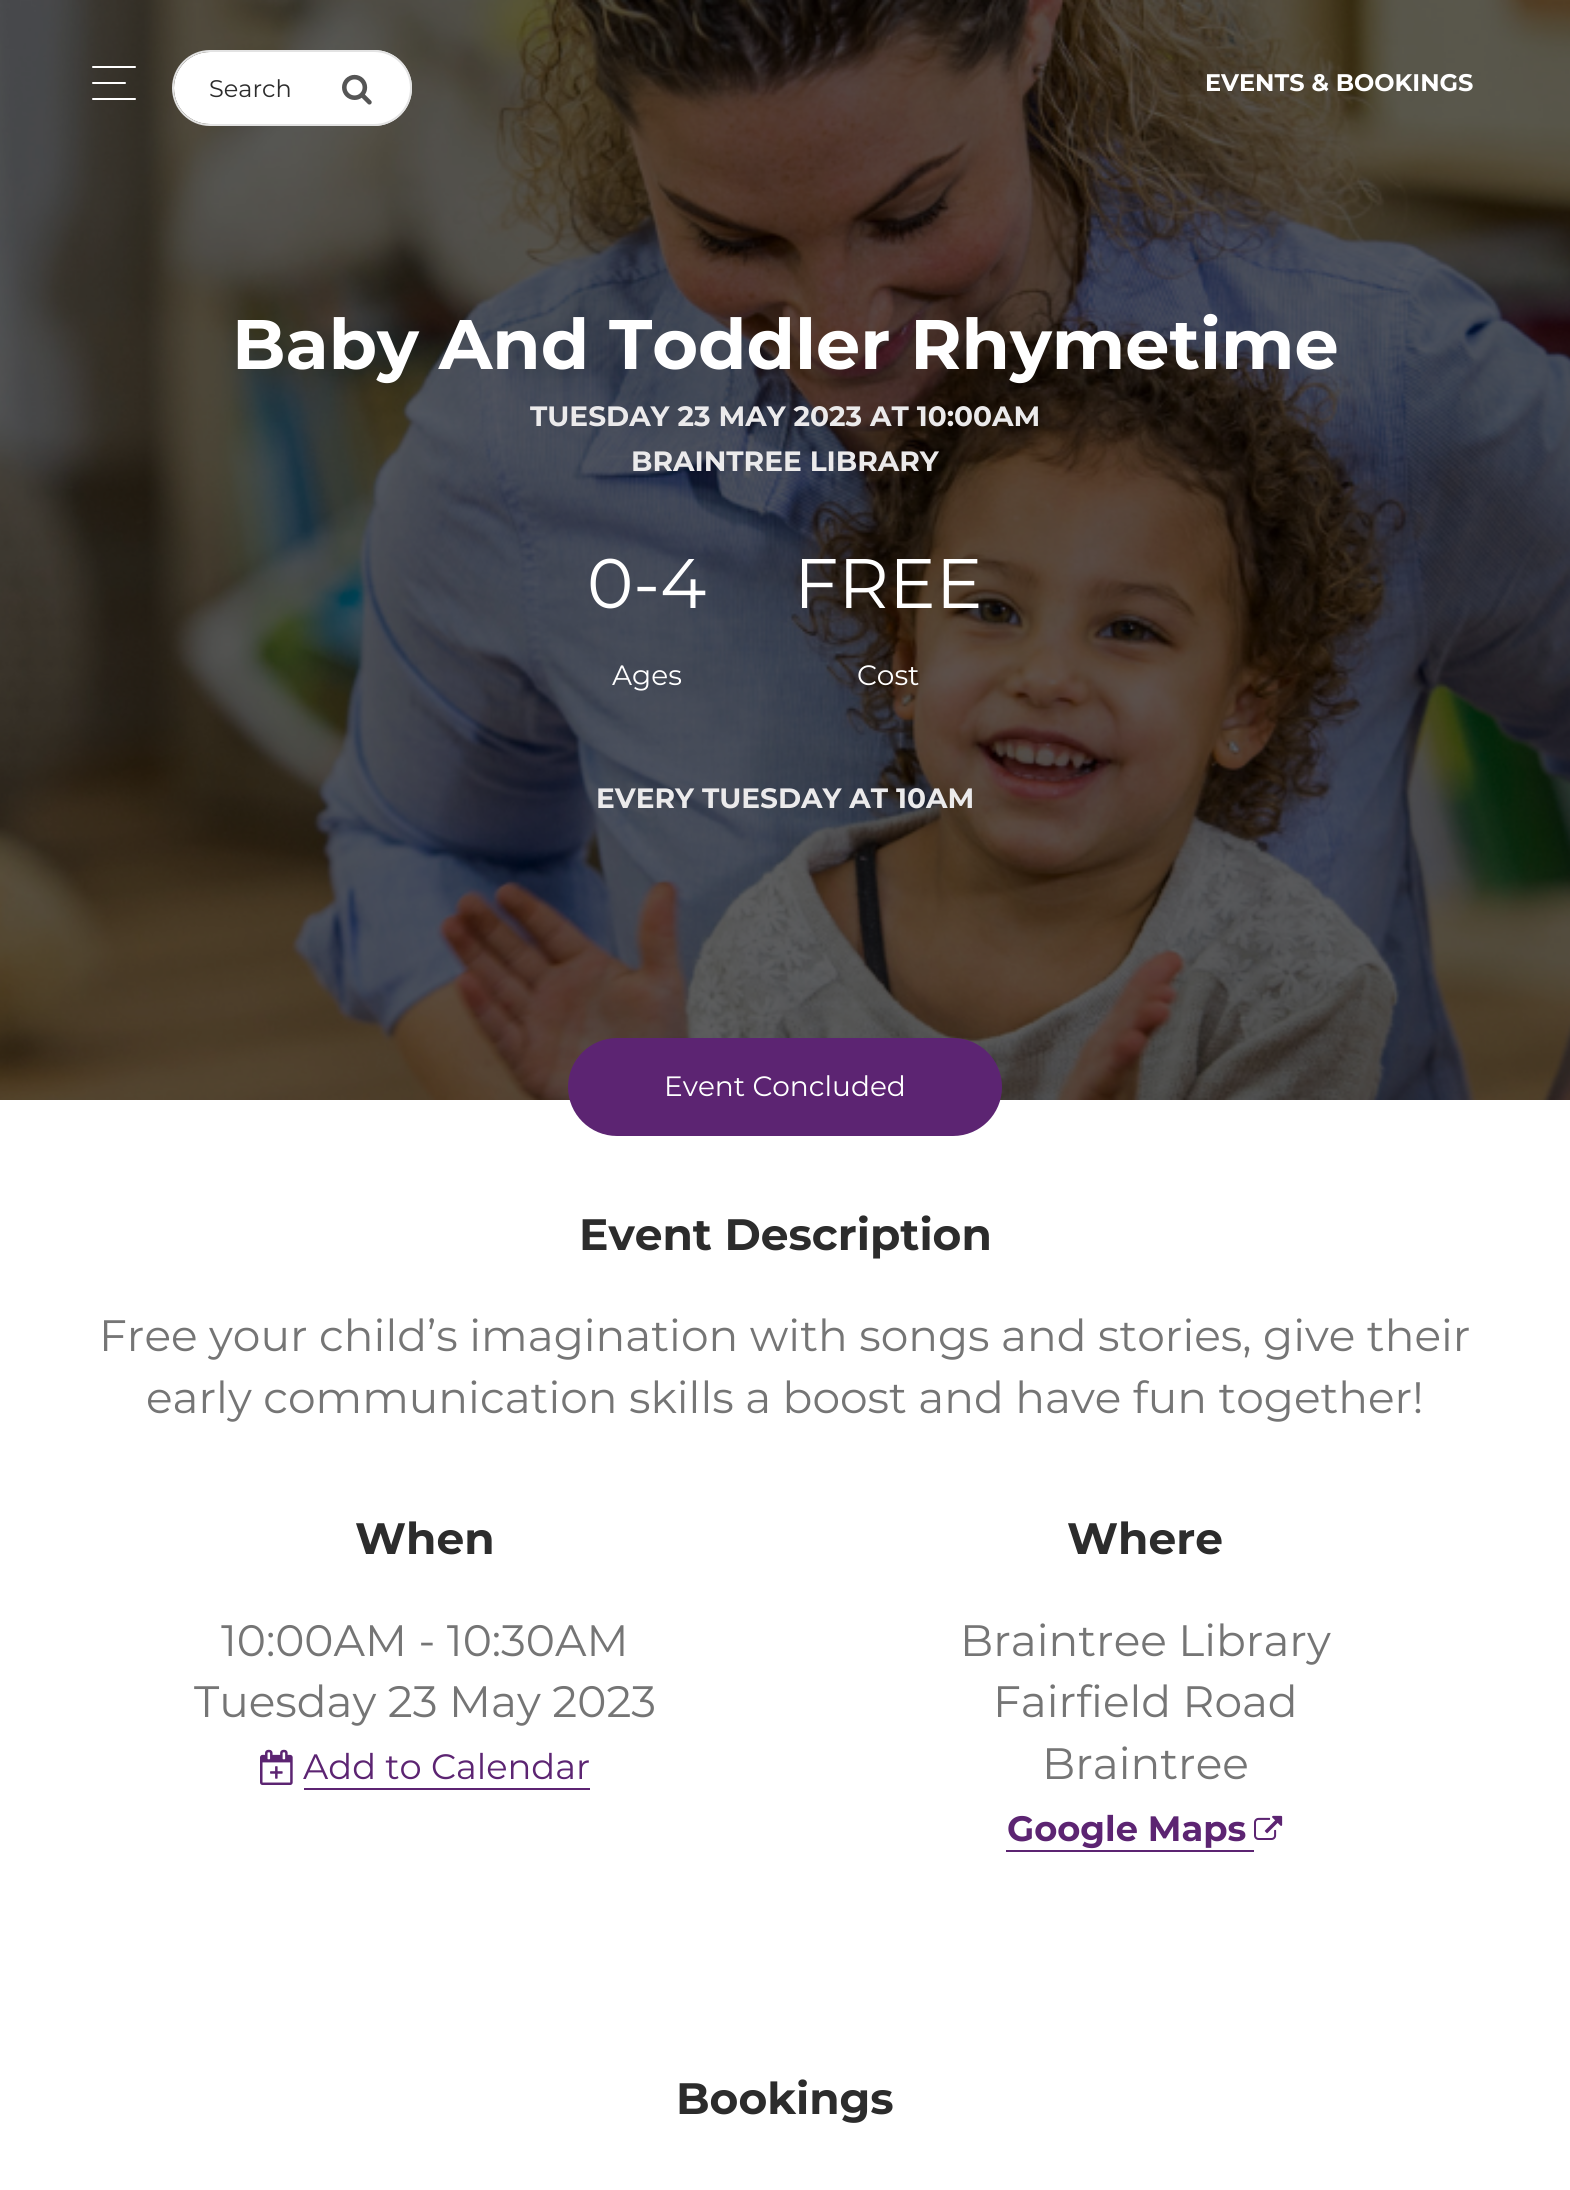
import math
import cairo

surface = cairo.ImageSurface(cairo.Format.RGB24, 1570, 2190)
ctx = cairo.Context(surface)
options = cairo.FontOptions()
options.set_hint_metrics(cairo.HintMetrics.OFF)
options.set_hint_style(cairo.HintStyle.NONE)
ctx.set_font_options(options)
ctx.set_miter_limit(4)


def ink(r, g, b):
    ctx.set_source_rgb(r / 255, g / 255, b / 255)


def write(x, y, s, family, size, color, bold=False, italic=False):
    ctx.select_font_face(family, cairo.FontSlant.ITALIC if italic else cairo.FontSlant.NORMAL, cairo.FontWeight.BOLD if bold else cairo.FontWeight.NORMAL)
    ctx.set_font_size(size)
    ink(*color)
    ctx.move_to(x, y)
    ctx.show_text(s)


def block(x, y, w, h, *color):
    ink(*color)
    ctx.rectangle(x, y, w, h)
    ctx.fill()


def round_path(x, y, w, h, r):
    ctx.new_sub_path()
    for i, (u, v) in enumerate([(x + w - r, y + h - r), (x + r, y + h - r), (x + r, y + r), (x + w - r, y + r)]):
        ctx.arc(u, v, r, i * math.pi / 2, (i + 1) * math.pi / 2)
    ctx.close_path()


def paste(path, x, y, w, h):
    ctx.save()
    ctx.set_source_surface(cairo.ImageSurface.create_from_png(path), x, y)
    ctx.rectangle(x, y, w, h)
    ctx.fill()
    ctx.restore()


s1 = dict(family="Montserrat", size=24, color=(44, 44, 44))
s2 = dict(family="Montserrat", size=24, color=(255, 255, 255), bold=True)
s3 = dict(family="Montserrat", size=70, color=(255, 255, 255), bold=True)
s4 = dict(family="Montserrat", size=28, color=(235, 234, 235), bold=True)
s5 = dict(family="Montserrat", size=70, color=(255, 255, 255))
s6 = dict(family="Montserrat", size=28, color=(255, 255, 255))
s7 = dict(family="Montserrat", size=43.95, color=(44, 44, 44), bold=True)
s8 = dict(family="Montserrat", size=43.95, color=(117, 117, 117))
s9 = dict(family="Montserrat", size=35.25, color=(92, 36, 114))
s10 = dict(family="Montserrat", size=35.25, color=(92, 36, 114), bold=True)

ink(255, 255, 255)
ctx.paint()
paste("pic2.png", 0, 0, 1570, 1100)
ink(255, 255, 255)
round_path(92, 66, 44, 2, 1)
ctx.fill()
round_path(92, 82, 34, 2, 1)
ctx.fill()
round_path(92, 98, 44, 2, 1)
ctx.fill()
ctx.new_path()
ctx.move_to(210, 52)
ctx.line_to(340, 52)
ctx.line_to(340, 124)
ctx.line_to(210, 124)
ctx.curve_to(190, 124, 174, 108, 174, 88)
ctx.curve_to(174, 68, 190, 52, 210, 52)
ctx.close_path()
ctx.fill()
ink(227, 227, 227)
ctx.set_fill_rule(cairo.FillRule.EVEN_ODD)
ctx.new_path()
ctx.move_to(210, 50)
ctx.line_to(340, 50)
ctx.line_to(340, 126)
ctx.line_to(210, 126)
ctx.curve_to(189, 126, 172, 109, 172, 88)
ctx.curve_to(172, 67, 189, 50, 210, 50)
ctx.close_path()
ctx.move_to(210, 52)
ctx.line_to(340, 52)
ctx.line_to(340, 124)
ctx.line_to(210, 124)
ctx.curve_to(190, 124, 174, 108, 174, 88)
ctx.curve_to(174, 68, 190, 52, 210, 52)
ctx.close_path()
ctx.fill()
write(209, 97, "Search", **s1)
ink(255, 255, 255)
ctx.new_path()
ctx.move_to(340, 50)
ctx.line_to(374, 50)
ctx.curve_to(395, 50, 412, 67, 412, 88)
ctx.curve_to(412, 109, 395, 126, 374, 126)
ctx.line_to(340, 126)
ctx.close_path()
ctx.fill()
ink(227, 227, 227)
ctx.new_path()
ctx.move_to(340, 50)
ctx.line_to(374, 50)
ctx.curve_to(395, 50, 412, 67, 412, 88)
ctx.curve_to(412, 109, 395, 126, 374, 126)
ctx.line_to(340, 126)
ctx.close_path()
ctx.move_to(340, 52)
ctx.line_to(374, 52)
ctx.curve_to(394, 52, 410, 68, 410, 88)
ctx.curve_to(410, 108, 394, 124, 374, 124)
ctx.line_to(340, 124)
ctx.close_path()
ctx.fill()
paste("pic1.png", 342, 74, 30, 31)
write(1205, 91, "EVENTS & BOOKINGS", **s2)
write(232, 369, "Baby And Toddler Rhymetime", **s3)
write(530, 426, "TUESDAY 23 MAY 2023 AT 10:00AM", **s4)
write(631, 471, "BRAINTREE LIBRARY", **s4)
write(587, 608, "0-4", **s5)
write(612, 685, "Ages", **s6)
write(794, 608, "FREE", **s5)
write(857, 685, "Cost", **s6)
write(596, 808, "EVERY TUESDAY AT 10AM", **s4)
ink(92, 36, 114)
round_path(568, 1038, 434, 98, 49)
ctx.fill()
write(664, 1096, "Event Concluded", **s6)
write(579, 1250, "Event Description", **s7)
write(99, 1351, "Free your child’s imagination with songs and stories, give their", **s8)
write(146, 1413, "early communication skills a boost and have fun together!", **s8)
write(355, 1554, "When", **s7)
write(221, 1656, "10:00AM - 10:30AM", **s8)
write(194, 1717, "Tuesday 23 May 2023", **s8)
paste("pic3.png", 260, 1749, 33, 36)
write(303, 1779, "Add to Calendar", **s9)
block(304, 1788, 286, 2, 92, 36, 114)
write(1067, 1554, "Where", **s7)
write(960, 1656, "Braintree Library", **s8)
write(993, 1717, "Fairfield Road", **s8)
write(1042, 1779, "Braintree", **s8)
write(1007, 1841, "Google Maps", **s10)
block(1006, 1850, 248, 2, 92, 36, 114)
paste("pic4.png", 1254, 1815, 29, 25)
write(676, 2114, "Bookings", **s7)
surface.write_to_png("screenshot.png")
